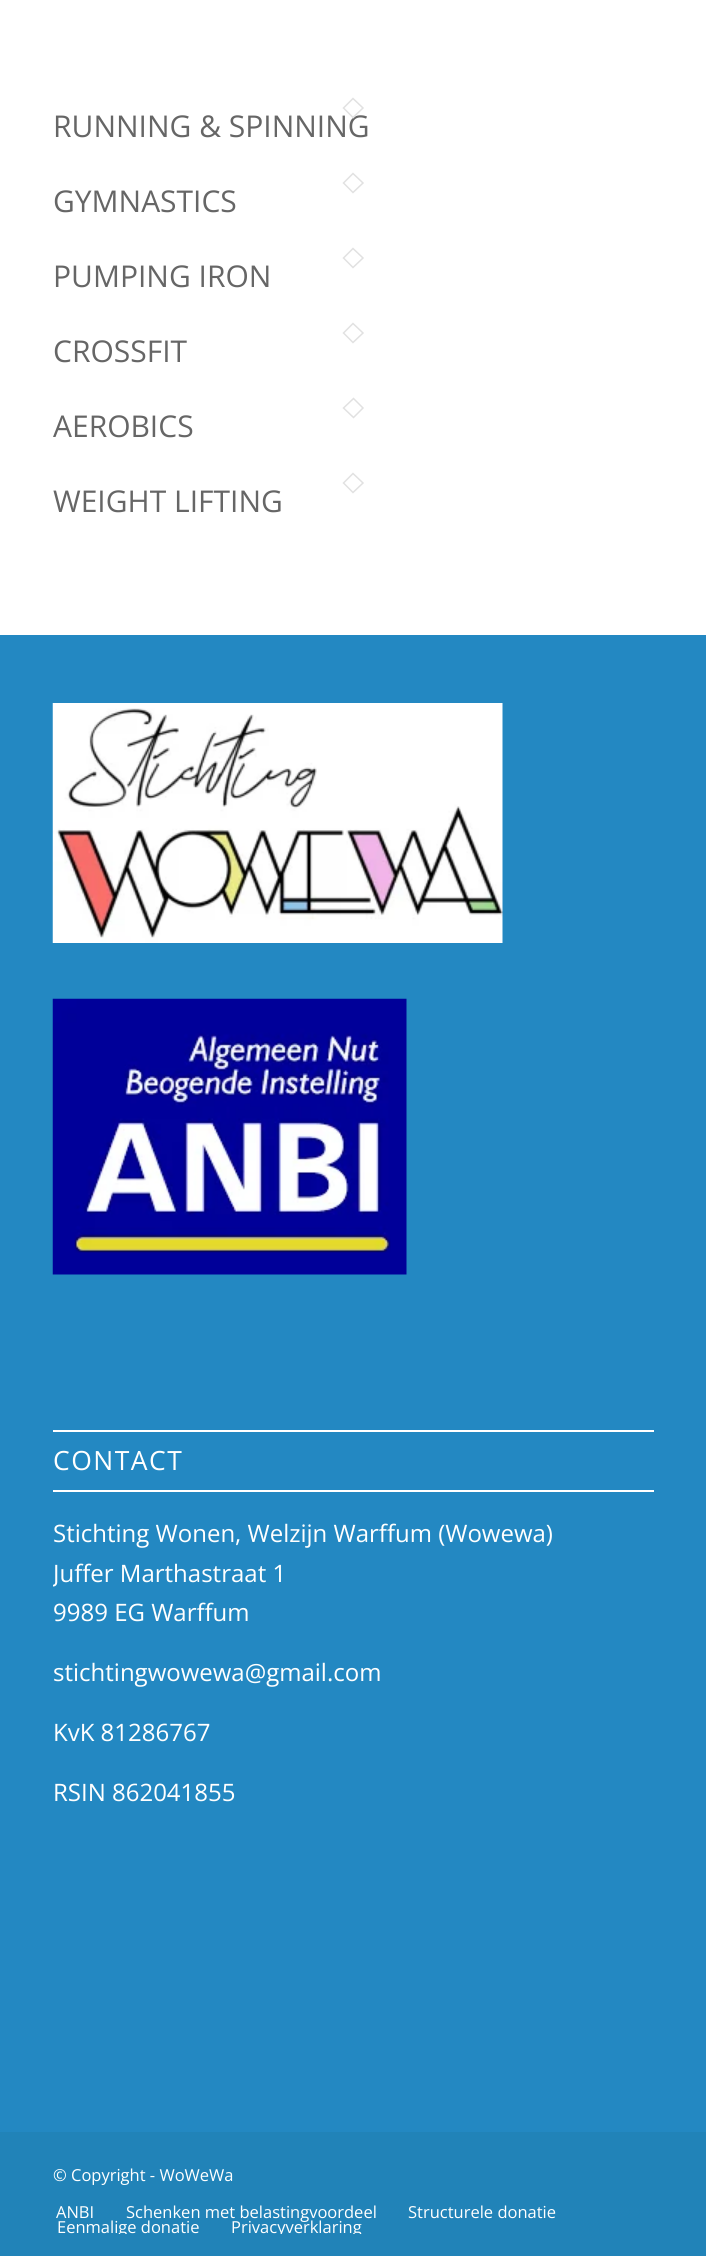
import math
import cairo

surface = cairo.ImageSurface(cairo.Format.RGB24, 706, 2256)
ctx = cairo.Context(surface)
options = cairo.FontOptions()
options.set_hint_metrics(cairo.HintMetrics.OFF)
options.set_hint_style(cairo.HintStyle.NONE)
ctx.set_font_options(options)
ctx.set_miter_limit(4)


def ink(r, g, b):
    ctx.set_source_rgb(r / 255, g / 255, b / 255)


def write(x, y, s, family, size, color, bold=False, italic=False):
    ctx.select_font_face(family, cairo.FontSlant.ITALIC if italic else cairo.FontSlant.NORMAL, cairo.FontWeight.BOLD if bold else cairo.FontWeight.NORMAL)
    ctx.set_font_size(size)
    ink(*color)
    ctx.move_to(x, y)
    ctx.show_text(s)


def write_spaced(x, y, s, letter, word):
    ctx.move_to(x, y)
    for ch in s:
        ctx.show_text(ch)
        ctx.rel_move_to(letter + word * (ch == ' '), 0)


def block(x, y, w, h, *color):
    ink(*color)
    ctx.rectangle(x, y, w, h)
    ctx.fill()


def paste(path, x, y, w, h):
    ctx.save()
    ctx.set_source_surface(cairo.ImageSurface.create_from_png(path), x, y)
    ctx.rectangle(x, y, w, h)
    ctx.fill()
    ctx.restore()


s1 = dict(family="Open Sans", size=30, color=(102, 102, 102))
s2 = dict(family="Open Sans", size=24, color=(255, 255, 255))
s3 = dict(family="Open Sans", size=16.5, color=(255, 255, 255))

ink(255, 255, 255)
ctx.paint()
write(53, 137, "RUNNING & SPINNING", **s1)
ink(255, 255, 255)
ctx.new_path()
ctx.move_to(353, 97.5)
ctx.line_to(364, 108)
ctx.line_to(353, 118.5)
ctx.line_to(342.5, 108)
ctx.close_path()
ctx.fill()
ctx.new_path()
ctx.move_to(353, 98.5)
ctx.line_to(363, 108)
ctx.line_to(353, 117.5)
ctx.line_to(343.5, 108)
ctx.close_path()
ink(225, 225, 225)
ctx.set_line_width(1.5)
ctx.stroke()
ctx.new_path()
ctx.move_to(353, 173.5)
ctx.line_to(363, 183)
ctx.line_to(353, 192.5)
ctx.line_to(343.5, 183)
ctx.close_path()
ctx.stroke()
write(53, 212, "GYMNASTICS", **s1)
ctx.new_path()
ctx.move_to(353, 248.5)
ctx.line_to(363, 258)
ctx.line_to(353, 267.5)
ctx.line_to(343.5, 258)
ctx.close_path()
ink(225, 225, 225)
ctx.stroke()
write(53, 287, "PUMPING IRON", **s1)
ctx.new_path()
ctx.move_to(353, 323.5)
ctx.line_to(363, 333)
ctx.line_to(353, 342.5)
ctx.line_to(343.5, 333)
ctx.close_path()
ink(225, 225, 225)
ctx.stroke()
write(53, 362, "CROSSFIT", **s1)
ctx.new_path()
ctx.move_to(353.5, 398.5)
ctx.line_to(363, 408)
ctx.line_to(353.5, 417.5)
ctx.line_to(343.5, 408)
ctx.close_path()
ink(225, 225, 225)
ctx.stroke()
write(53, 437, "AEROBICS", **s1)
ctx.new_path()
ctx.move_to(353, 473.5)
ctx.line_to(363, 483)
ctx.line_to(353, 492.5)
ctx.line_to(343.5, 483)
ctx.close_path()
ink(225, 225, 225)
ctx.stroke()
write(53, 512, "WEIGHT LIFTING", **s1)
block(0, 635, 706, 1497, 35, 136, 194)
paste("pic1.png", 52, 703, 451, 240)
paste("pic2.png", 52, 998, 355, 277)
block(53, 1430, 601, 2, 255, 255, 255)
block(53, 1490, 601, 2, 255, 255, 255)
ctx.set_font_size(26.5)
write_spaced(53, 1470, "CONTACT", 1.5, 0)
write(53, 1542, "Stichting Wonen, Welzijn Warffum (Wowewa)", **s2)
ctx.save()
ctx.rectangle(53, 1407, 601, 486)
ctx.clip()
write(53, 1582, "Juffer Marthastraat 1", **s2)
ctx.restore()
write(53, 1621, "9989 EG Warffum", **s2)
write(53, 1681, "stichtingwowewa@gmail.com", **s2)
write(53, 1741, "KvK 81286767", **s2)
write(53, 1801, "RSIN 862041855", **s2)
block(0, 2132, 706, 124, 33, 131, 184)
write(53, 2181, "© Copyright - WoWeWa", **s3)
write(56, 2218, "ANBI", **s3)
write(126, 2218, "Schenken met belastingvoordeel", **s3)
write(408, 2218, "Structurele donatie", **s3)
ctx.save()
ctx.rectangle(30, 2195, 602, 39)
ctx.clip()
write(57, 2233, "Eenmalige donatie", **s3)
write(231, 2233, "Privacyverklaring", **s3)
ctx.restore()
surface.write_to_png("screenshot.png")
